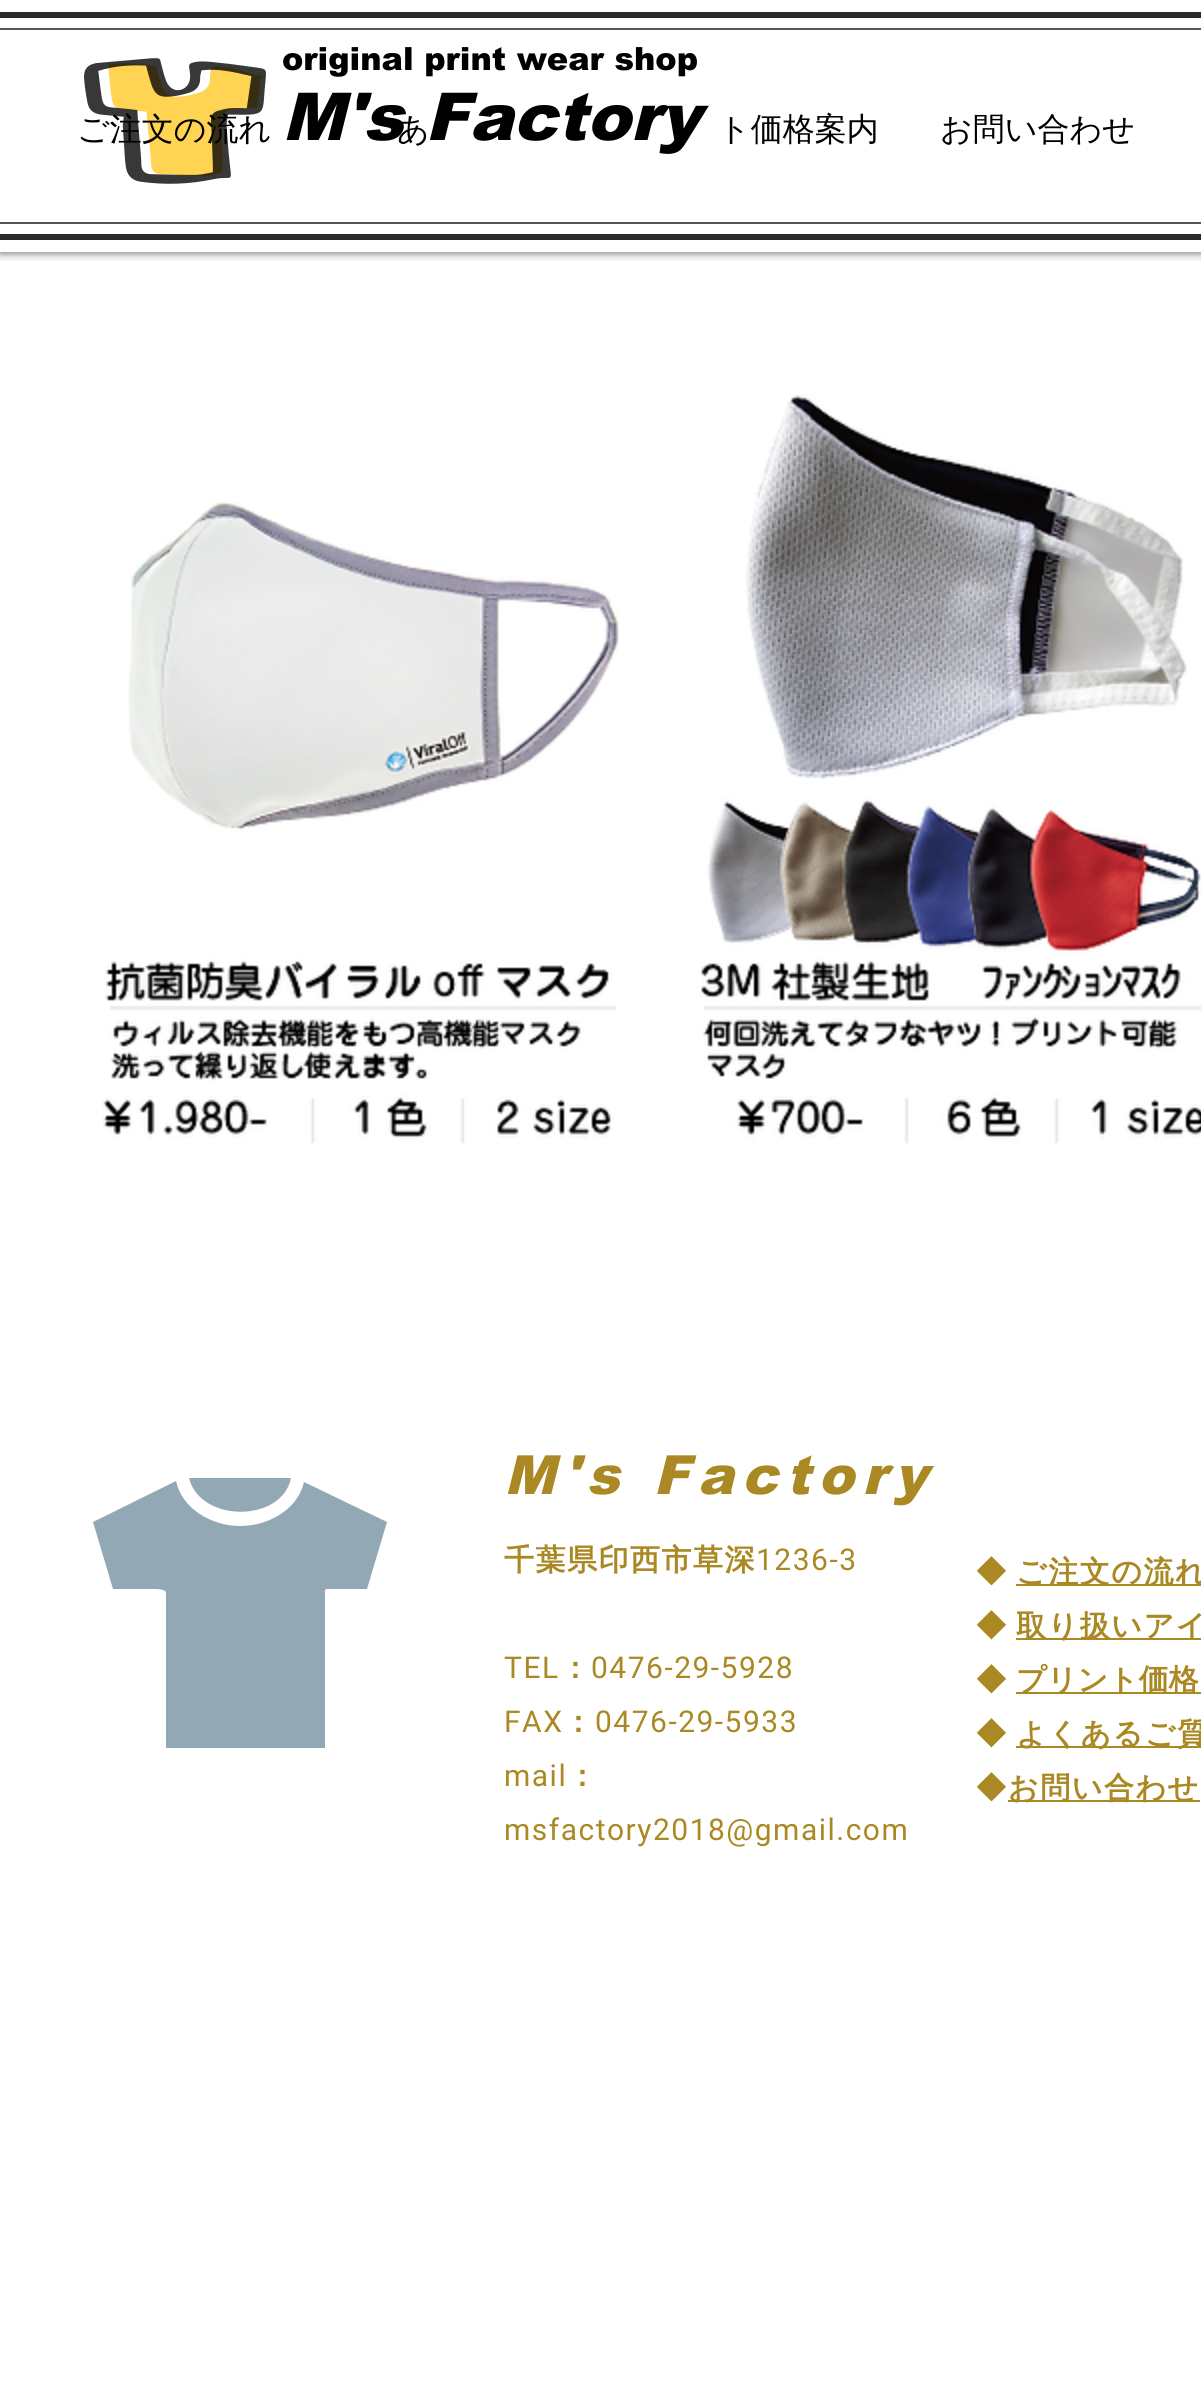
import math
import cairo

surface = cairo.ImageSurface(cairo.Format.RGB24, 1201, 2393)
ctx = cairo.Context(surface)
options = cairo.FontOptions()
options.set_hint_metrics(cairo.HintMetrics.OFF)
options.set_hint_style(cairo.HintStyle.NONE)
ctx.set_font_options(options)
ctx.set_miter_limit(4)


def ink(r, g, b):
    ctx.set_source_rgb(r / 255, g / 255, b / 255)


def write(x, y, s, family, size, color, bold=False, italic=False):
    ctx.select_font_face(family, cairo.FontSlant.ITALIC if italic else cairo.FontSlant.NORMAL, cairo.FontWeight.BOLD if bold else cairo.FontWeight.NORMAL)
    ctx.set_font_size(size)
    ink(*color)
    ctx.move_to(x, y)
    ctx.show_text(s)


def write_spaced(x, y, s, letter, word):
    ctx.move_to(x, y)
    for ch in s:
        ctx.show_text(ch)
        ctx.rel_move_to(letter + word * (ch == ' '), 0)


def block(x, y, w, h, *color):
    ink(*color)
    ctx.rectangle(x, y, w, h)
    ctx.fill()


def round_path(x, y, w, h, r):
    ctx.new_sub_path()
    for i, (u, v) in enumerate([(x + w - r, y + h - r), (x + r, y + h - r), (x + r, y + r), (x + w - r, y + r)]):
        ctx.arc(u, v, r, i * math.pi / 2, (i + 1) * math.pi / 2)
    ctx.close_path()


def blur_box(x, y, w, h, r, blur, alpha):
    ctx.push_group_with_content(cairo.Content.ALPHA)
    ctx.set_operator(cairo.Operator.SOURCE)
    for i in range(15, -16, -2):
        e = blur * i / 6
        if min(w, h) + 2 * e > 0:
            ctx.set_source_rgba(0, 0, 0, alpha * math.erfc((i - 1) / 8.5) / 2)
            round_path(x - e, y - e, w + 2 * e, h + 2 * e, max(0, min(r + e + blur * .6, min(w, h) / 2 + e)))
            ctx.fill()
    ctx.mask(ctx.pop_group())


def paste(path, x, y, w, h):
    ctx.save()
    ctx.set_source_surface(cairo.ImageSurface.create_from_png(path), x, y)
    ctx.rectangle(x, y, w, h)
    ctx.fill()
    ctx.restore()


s1 = dict(family="arial Black", size=32, color=(0, 0, 0))
s2 = dict(family="arial Black", size=66, color=(0, 0, 0), italic=True)
s3 = dict(family="WenQuanYi Zen Hei Medium", size=32, color=(0, 0, 0))
s4 = dict(family="WenQuanYi Zen Hei", size=30, color=(170, 137, 36), bold=True)

ink(255, 255, 255)
ctx.paint()
ctx.save()
ctx.rectangle(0, 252, 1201, 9)
ctx.clip()
ink(0, 0, 0)
blur_box(0, 0, 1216, 252, 0, 5, 0.7)
ctx.restore()
block(0, 12, 1201, 6, 42, 42, 42)
block(0, 234, 1201, 6, 42, 42, 42)
block(0, 28, 1201, 2, 85, 85, 85)
block(0, 222, 1201, 2, 85, 85, 85)
paste("pic1.png", 84, 58, 182, 126)
write(282, 70, "original print wear shop", **s1)
write(282, 140, "M's Factory", **s2)
write(77, 140, "ご注文の流れ", **s3)
write(397, 140, "あ", **s3)
write(718, 140, "ト価格案内", **s3)
write(940, 140, "お問い合わせ", **s3)
paste("pic2.png", 103, 501, 516, 643)
paste("pic3.png", 698, 394, 503, 750)
ink(146, 168, 180)
ctx.new_path()
ctx.move_to(291, 1478)
ctx.curve_to(282, 1523, 200, 1523, 189, 1478)
ctx.move_to(367, 1589)
ctx.line_to(329, 1589)
ctx.curve_to(325, 1589, 325, 1589, 325, 1593)
ctx.line_to(325, 1748)
ctx.line_to(166, 1748)
ctx.line_to(166, 1593)
ctx.curve_to(166, 1589, 157, 1589, 153, 1589)
ctx.line_to(113, 1589)
ctx.line_to(93, 1522)
ctx.line_to(176, 1481)
ctx.curve_to(182, 1509, 212, 1526, 240, 1526)
ctx.curve_to(269, 1526, 298, 1509, 304, 1482)
ctx.line_to(387, 1522)
ctx.close_path()
ctx.fill()
ctx.select_font_face("arial Black", cairo.FontSlant.ITALIC)
ctx.set_font_size(54)
ink(170, 137, 36)
write_spaced(504, 1494, "M's Factory", 8.1, 0)
ctx.select_font_face("WenQuanYi Zen Hei", cairo.FontSlant.NORMAL, cairo.FontWeight.BOLD)
ctx.set_font_size(30)
write_spaced(504, 1570, "千葉県印西市草深", 1.5, 0)
ctx.select_font_face("Roboto")
write_spaced(756, 1570, "1236-3", 1.5, 0)
write_spaced(504, 1678, "TEL", 1.5, 0)
ctx.select_font_face("WenQuanYi Zen Hei", cairo.FontSlant.NORMAL, cairo.FontWeight.BOLD)
write_spaced(560, 1678, "：", 1.5, 0)
ctx.select_font_face("Roboto")
write_spaced(591, 1678, "0476-29-5928", 1.5, 0)
write_spaced(504, 1732, "FAX", 1.5, 0)
ctx.select_font_face("WenQuanYi Zen Hei", cairo.FontSlant.NORMAL, cairo.FontWeight.BOLD)
write_spaced(563, 1732, "：", 1.5, 0)
ctx.select_font_face("Roboto")
write_spaced(595, 1732, "0476-29-5933", 1.5, 0)
write_spaced(504, 1786, "mail", 1.5, 0)
ctx.select_font_face("WenQuanYi Zen Hei", cairo.FontSlant.NORMAL, cairo.FontWeight.BOLD)
write_spaced(567, 1786, "：", 1.5, 0)
ctx.select_font_face("Roboto")
write_spaced(504, 1840, "msfactory2018@gmail.com", 1.5, 0)
ctx.select_font_face("WenQuanYi Zen Hei", cairo.FontSlant.NORMAL, cairo.FontWeight.BOLD)
write_spaced(976, 1582, "◆", 1.5, 0)
block(1016, 1584, 185, 2, 170, 137, 36)
write_spaced(1016, 1582, "ご注文の流れ", 1.5, 0)
write_spaced(976, 1636, "◆", 1.5, 0)
block(1016, 1638, 185, 2, 170, 137, 36)
write_spaced(1016, 1636, "取り扱いアイ", 1.5, 0)
write_spaced(976, 1690, "◆", 1.5, 0)
block(1016, 1692, 185, 2, 170, 137, 36)
write(1016, 1690, "プリント価格", **s4)
write_spaced(976, 1744, "◆", 1.5, 0)
block(1016, 1746, 185, 2, 170, 137, 36)
write_spaced(1016, 1744, "よくあるご質", 1.5, 0)
write_spaced(976, 1798, "◆", 1.5, 0)
block(1008, 1800, 192, 2, 170, 137, 36)
write_spaced(1008, 1798, "お問い合わせ", 1.5, 0)
surface.write_to_png("screenshot.png")
